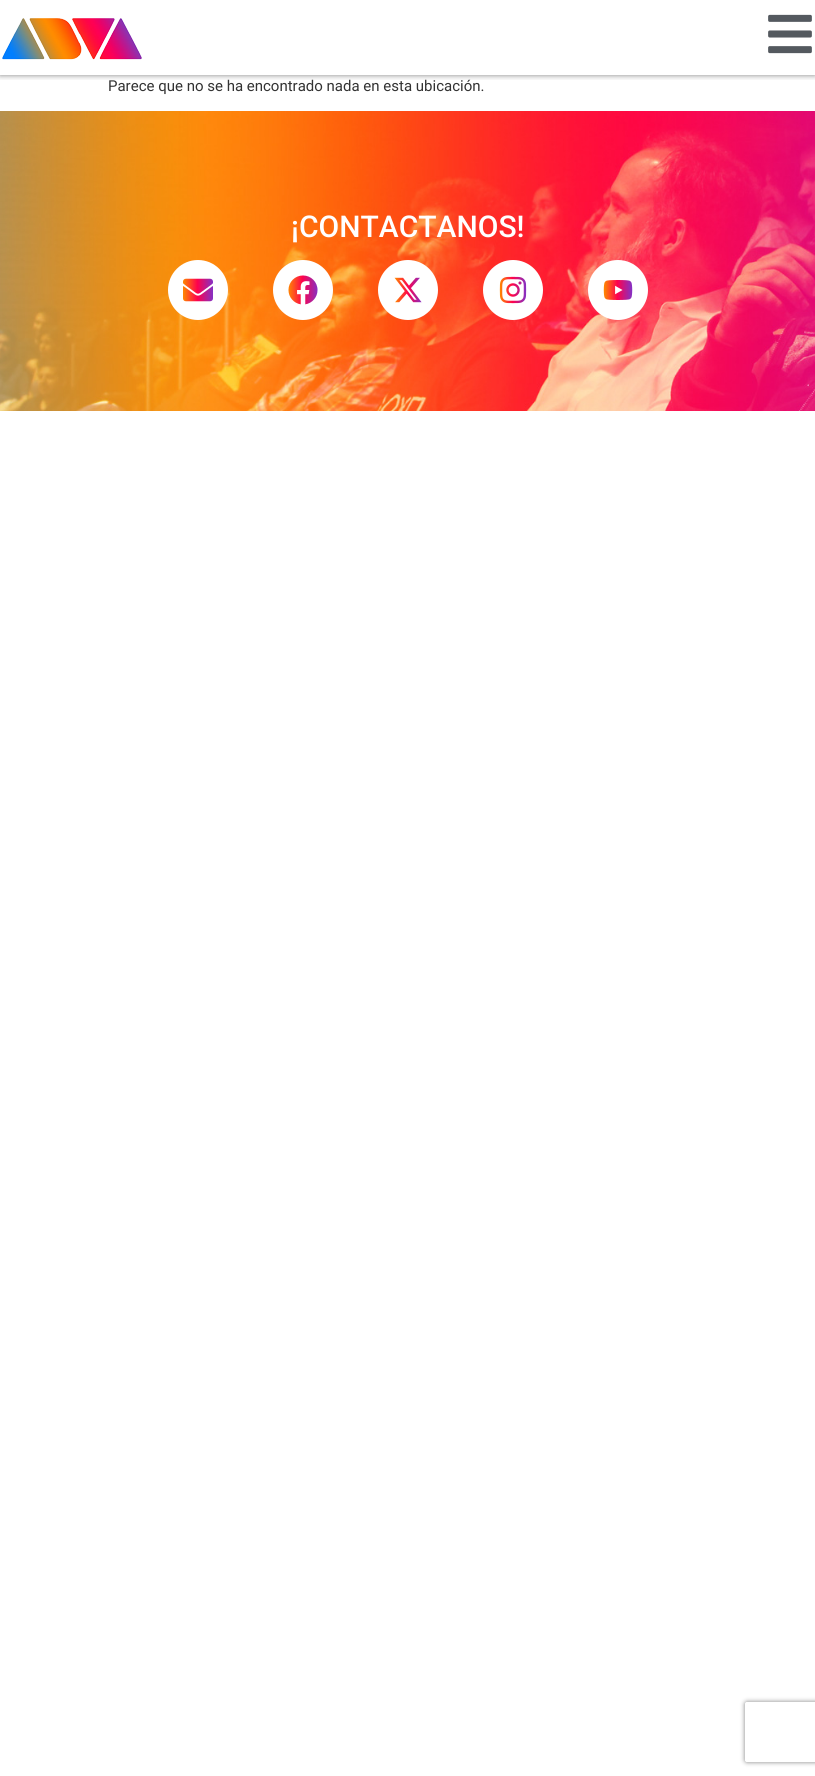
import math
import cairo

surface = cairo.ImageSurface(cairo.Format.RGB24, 815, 1776)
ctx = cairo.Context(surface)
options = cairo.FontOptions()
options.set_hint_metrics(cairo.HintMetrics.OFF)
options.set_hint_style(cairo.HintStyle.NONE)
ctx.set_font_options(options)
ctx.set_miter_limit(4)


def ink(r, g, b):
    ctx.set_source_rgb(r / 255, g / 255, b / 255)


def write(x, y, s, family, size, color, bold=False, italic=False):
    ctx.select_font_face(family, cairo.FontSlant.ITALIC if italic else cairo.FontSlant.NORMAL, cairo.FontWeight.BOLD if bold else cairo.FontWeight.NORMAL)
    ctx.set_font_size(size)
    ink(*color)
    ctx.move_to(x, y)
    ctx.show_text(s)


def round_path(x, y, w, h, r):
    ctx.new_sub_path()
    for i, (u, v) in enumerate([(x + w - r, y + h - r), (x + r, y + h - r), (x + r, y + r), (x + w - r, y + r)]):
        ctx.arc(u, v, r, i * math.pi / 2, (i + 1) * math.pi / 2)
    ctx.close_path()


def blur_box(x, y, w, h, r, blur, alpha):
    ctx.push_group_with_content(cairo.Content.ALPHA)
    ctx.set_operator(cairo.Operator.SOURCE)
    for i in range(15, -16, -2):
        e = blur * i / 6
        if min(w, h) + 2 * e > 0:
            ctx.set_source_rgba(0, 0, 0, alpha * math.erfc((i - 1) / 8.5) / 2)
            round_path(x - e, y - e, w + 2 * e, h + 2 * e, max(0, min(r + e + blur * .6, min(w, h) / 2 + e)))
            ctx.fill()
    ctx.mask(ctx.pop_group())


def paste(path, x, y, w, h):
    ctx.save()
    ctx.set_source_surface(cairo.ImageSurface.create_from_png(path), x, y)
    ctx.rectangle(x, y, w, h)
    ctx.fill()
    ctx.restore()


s1 = dict(family="Roboto", size=15, color=(51, 51, 51))
s2 = dict(family="Roboto Medium", size=30, color=(255, 255, 255))

ink(255, 255, 255)
ctx.paint()
ctx.save()
ctx.rectangle(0, 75, 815, 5)
ctx.clip()
ink(0, 0, 0)
blur_box(0, 0, 815, 75, 0, 3, 0.5)
ctx.restore()
paste("pic1.png", 2, 18, 140, 42)
paste("pic2.png", 768, 14, 44, 40)
write(108, 91, "Parece que no se ha encontrado nada en esta ubicación.", **s1)
paste("pic3.png", 0, 111, 815, 300)
write(291, 237, "¡CONTACTANOS!", **s2)
ctx.new_path()
ctx.arc(198, 290, 30, 0, 2 * math.pi)
ctx.fill()
paste("pic4.png", 183, 278, 30, 24)
ctx.arc(303, 290, 30, 0, 2 * math.pi)
ctx.fill()
paste("pic5.png", 288, 275, 30, 30)
ctx.arc(408, 290, 30, 0, 2 * math.pi)
ctx.fill()
paste("pic6.png", 394, 277, 28, 26)
ctx.arc(513, 290, 30, 0, 2 * math.pi)
ctx.fill()
paste("pic7.png", 499, 276, 28, 28)
ctx.arc(618, 290, 30, 0, 2 * math.pi)
ctx.fill()
paste("pic8.png", 603, 280, 30, 20)
ctx.save()
ctx.set_fill_rule(cairo.FillRule.EVEN_ODD)
ctx.new_path()
ctx.move_to(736, 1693)
ctx.line_to(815, 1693)
ctx.line_to(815, 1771)
ctx.line_to(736, 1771)
ctx.close_path()
ctx.move_to(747, 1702)
ctx.line_to(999, 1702)
ctx.curve_to(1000, 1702, 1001, 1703, 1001, 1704)
ctx.line_to(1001, 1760)
ctx.curve_to(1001, 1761, 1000, 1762, 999, 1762)
ctx.line_to(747, 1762)
ctx.curve_to(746, 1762, 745, 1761, 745, 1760)
ctx.line_to(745, 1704)
ctx.curve_to(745, 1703, 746, 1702, 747, 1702)
ctx.close_path()
ctx.clip()
ink(128, 128, 128)
blur_box(745, 1702, 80, 60, 2, 2.5, 1)
ctx.restore()
surface.write_to_png("screenshot.png")
